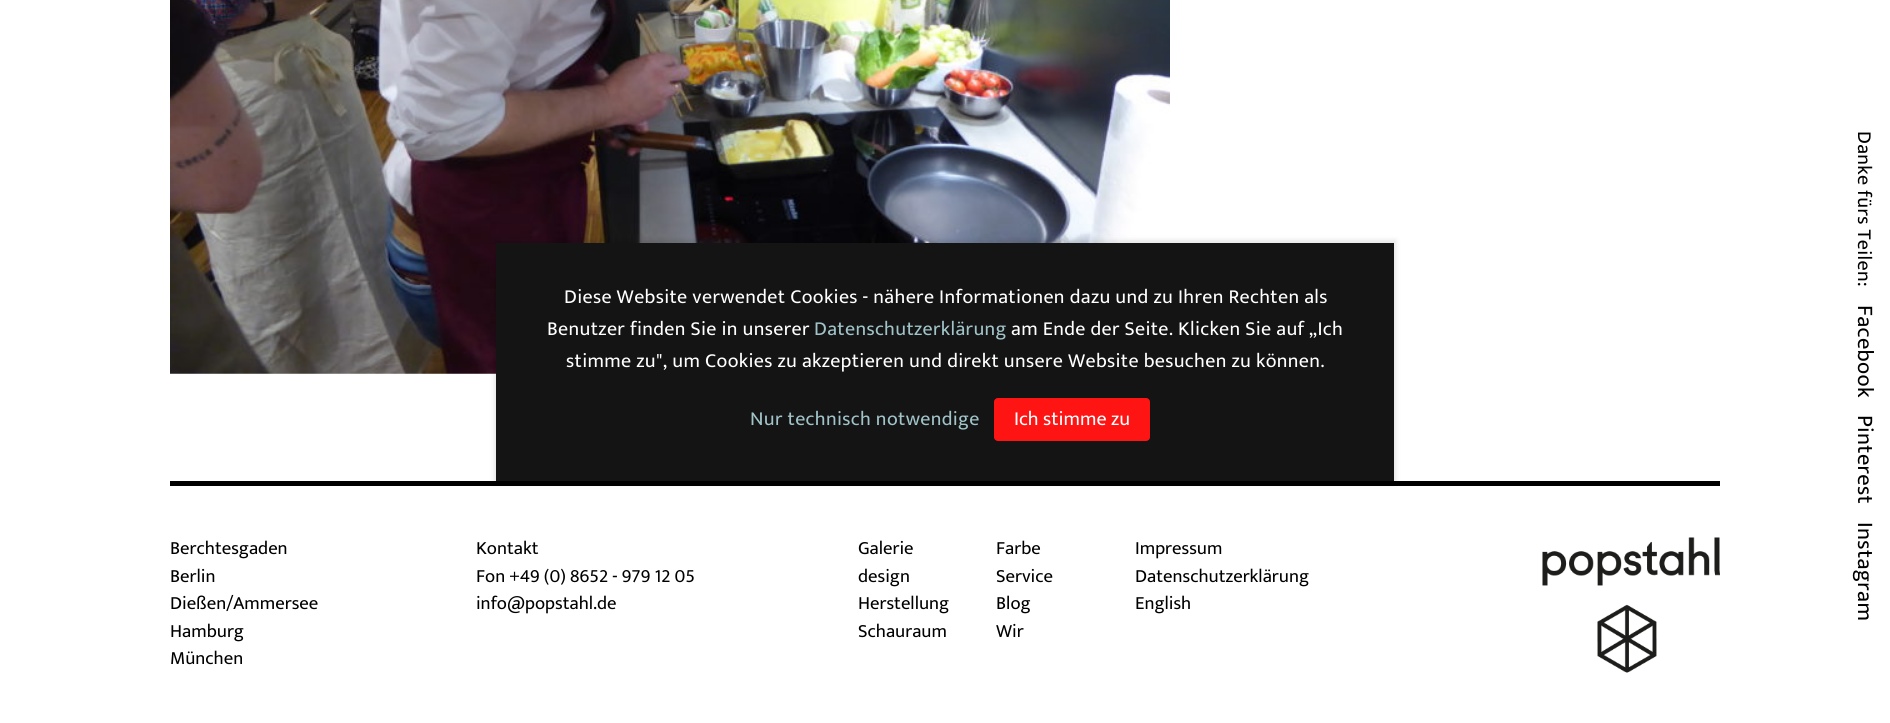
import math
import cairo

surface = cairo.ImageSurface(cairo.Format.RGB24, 1890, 723)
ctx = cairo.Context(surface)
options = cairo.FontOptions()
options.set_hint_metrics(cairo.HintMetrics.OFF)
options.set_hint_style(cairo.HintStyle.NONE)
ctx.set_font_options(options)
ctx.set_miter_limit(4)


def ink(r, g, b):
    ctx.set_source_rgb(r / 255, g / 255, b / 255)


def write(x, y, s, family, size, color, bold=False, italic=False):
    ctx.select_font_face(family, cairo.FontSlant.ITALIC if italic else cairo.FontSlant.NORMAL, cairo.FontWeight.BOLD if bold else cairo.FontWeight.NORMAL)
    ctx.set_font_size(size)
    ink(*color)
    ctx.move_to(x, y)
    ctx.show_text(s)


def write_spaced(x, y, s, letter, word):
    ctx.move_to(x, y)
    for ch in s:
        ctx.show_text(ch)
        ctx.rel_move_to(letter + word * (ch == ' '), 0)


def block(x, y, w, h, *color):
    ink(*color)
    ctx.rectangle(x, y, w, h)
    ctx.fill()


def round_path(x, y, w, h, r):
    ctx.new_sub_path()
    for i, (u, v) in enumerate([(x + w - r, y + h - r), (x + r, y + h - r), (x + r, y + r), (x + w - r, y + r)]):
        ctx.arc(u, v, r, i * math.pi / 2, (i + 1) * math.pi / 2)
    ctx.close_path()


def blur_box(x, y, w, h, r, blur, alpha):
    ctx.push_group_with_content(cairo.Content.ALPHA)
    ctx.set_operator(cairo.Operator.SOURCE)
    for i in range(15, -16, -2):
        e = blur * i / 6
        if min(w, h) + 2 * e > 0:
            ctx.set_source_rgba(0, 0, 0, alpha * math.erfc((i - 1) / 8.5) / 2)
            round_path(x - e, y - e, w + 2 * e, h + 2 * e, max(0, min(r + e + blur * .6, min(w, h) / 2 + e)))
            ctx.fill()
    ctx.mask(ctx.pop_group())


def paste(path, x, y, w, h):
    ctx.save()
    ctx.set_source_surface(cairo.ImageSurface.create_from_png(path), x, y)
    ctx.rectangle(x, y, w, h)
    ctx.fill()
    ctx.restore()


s1 = dict(family="Mukta", size=18.75, color=(0, 0, 0))
s2 = dict(family="Ek Mukta", size=20, color=(255, 255, 255))

ink(255, 255, 255)
ctx.paint()
paste("pic1.png", 170, 0, 1000, 374)
ctx.select_font_face("Ek Mukta")
ctx.set_font_size(20)
ink(0, 0, 0)
ctx.save()
ctx.translate(1858, 131)
ctx.rotate(90 * math.pi / 180)
write_spaced(0, 0, "Danke fürs Teilen:", 0.35, 0)
ctx.restore()
ctx.set_font_size(22.5)
ctx.save()
ctx.translate(1858, 305)
ctx.rotate(90 * math.pi / 180)
write_spaced(0, 0, "Facebook", 0.35, 0)
ctx.restore()
ctx.save()
ctx.translate(1858, 415)
ctx.rotate(90 * math.pi / 180)
write_spaced(0, 0, "Pinterest", 0.35, 0)
ctx.restore()
ctx.save()
ctx.translate(1858, 522)
ctx.rotate(90 * math.pi / 180)
write_spaced(0, 0, "Instagram", 0.35, 0)
ctx.restore()
block(170, 481, 1550, 5, 0, 0, 0)
write(170, 554, "Berchtesgaden", **s1)
write(170, 582, "Berlin", **s1)
write(170, 609, "Dießen/Ammersee", **s1)
write(170, 637, "Hamburg", **s1)
write(170, 664, "München", **s1)
write(476, 554, "Kontakt", **s1)
write(476, 582, "Fon +49 (0) 8652 - 979 12 05", **s1)
write(476, 609, "info@popstahl.de", **s1)
write(858, 554, "Galerie", **s1)
write(996, 554, "Farbe", **s1)
write(1135, 554, "Impressum", **s1)
write(858, 582, "design", **s1)
write(996, 582, "Service", **s1)
write(1135, 582, "Datenschutzerklärung", **s1)
write(858, 609, "Herstellung", **s1)
write(996, 609, "Blog", **s1)
write(1135, 609, "English", **s1)
write(858, 637, "Schauraum", **s1)
write(996, 637, "Wir", **s1)
paste("pic2.png", 1542, 537, 178, 136)
ink(0, 0, 0)
blur_box(494, 240, 902, 244, 0, 2.5, 0.1)
block(496, 243, 898, 238, 20, 20, 20)
ctx.select_font_face("Ek Mukta")
ctx.set_font_size(20)
ink(255, 255, 255)
write_spaced(564, 303, "Diese Website verwendet Cookies - nähere Informationen dazu und zu Ihren Rechten als", 0.35, 0)
write_spaced(547, 335, "Benutzer finden Sie in unserer", 0.35, 0)
ink(161, 196, 201)
write_spaced(814, 335, "Datenschutzerklärung", 0.35, 0)
ink(255, 255, 255)
write_spaced(1011, 335, "am Ende der Seite. Klicken Sie auf „Ich", 0.35, 0)
write_spaced(566, 367, "stimme zu\", um Cookies zu akzeptieren und direkt unsere Website besuchen zu können.", 0.35, 0)
ink(161, 196, 201)
write_spaced(750, 425, "Nur technisch notwendige", 0.35, 0)
ink(255, 20, 20)
round_path(994, 398, 156, 43, 4)
ctx.fill()
write(1014, 425, "Ich stimme zu", **s2)
surface.write_to_png("screenshot.png")
